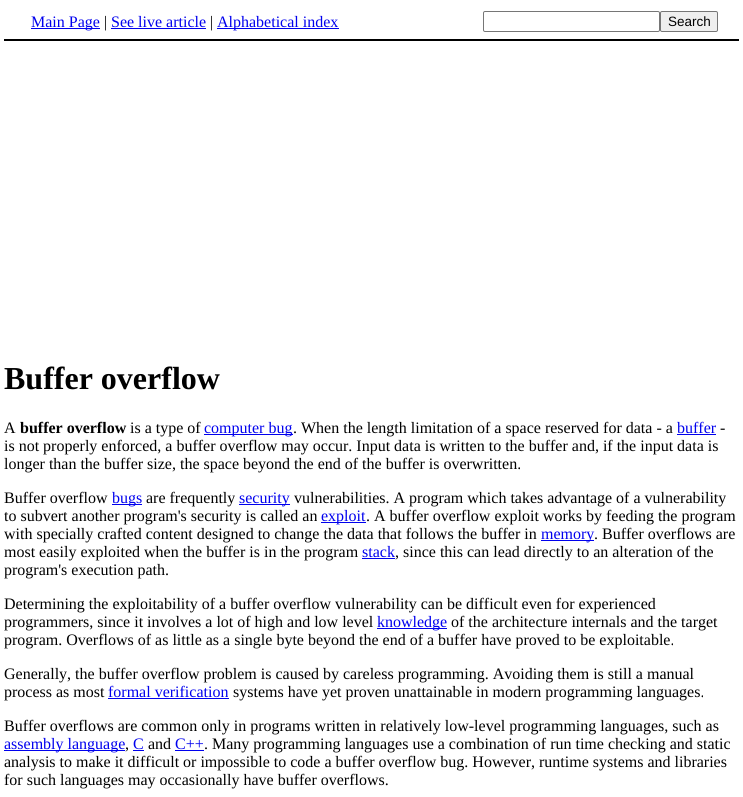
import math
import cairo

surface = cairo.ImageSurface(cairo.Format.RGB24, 743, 797)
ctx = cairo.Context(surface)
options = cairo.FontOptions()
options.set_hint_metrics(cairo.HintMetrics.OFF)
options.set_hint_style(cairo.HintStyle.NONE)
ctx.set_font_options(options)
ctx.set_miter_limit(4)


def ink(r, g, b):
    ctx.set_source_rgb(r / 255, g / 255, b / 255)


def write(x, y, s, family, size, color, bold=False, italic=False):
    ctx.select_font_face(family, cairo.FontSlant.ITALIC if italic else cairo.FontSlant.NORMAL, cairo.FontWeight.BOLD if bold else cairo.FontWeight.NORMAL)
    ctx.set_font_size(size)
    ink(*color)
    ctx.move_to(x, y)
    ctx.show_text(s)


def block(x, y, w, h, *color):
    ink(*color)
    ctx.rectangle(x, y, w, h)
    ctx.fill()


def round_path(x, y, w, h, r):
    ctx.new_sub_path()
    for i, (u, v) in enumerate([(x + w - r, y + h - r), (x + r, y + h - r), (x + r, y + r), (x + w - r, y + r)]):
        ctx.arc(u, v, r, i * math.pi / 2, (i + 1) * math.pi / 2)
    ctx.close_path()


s1 = dict(family="Liberation Serif", size=16, color=(0, 0, 238))
s2 = dict(family="Liberation Serif", size=16, color=(0, 0, 0))
s3 = dict(family="Liberation Sans", size=13.5, color=(0, 0, 0))
s4 = dict(family="Liberation Serif", size=32, color=(0, 0, 0), bold=True)
s5 = dict(family="Liberation Serif", size=16, color=(0, 0, 0), bold=True)

ink(255, 255, 255)
ctx.paint()
block(4, 39, 735, 2, 0, 0, 0)
block(31, 28, 69, 1, 0, 0, 238)
write(31, 27, "Main Page", **s1)
write(104, 27, "|", **s2)
write(111, 27, "See live article", **s1)
block(111, 28, 95, 1, 0, 0, 238)
write(210, 27, "|", **s2)
block(217, 28, 122, 1, 0, 0, 238)
write(217, 27, "Alphabetical index", **s1)
round_path(483.5, 11.5, 176, 20, 1.5)
ink(118, 118, 118)
ctx.set_line_width(1)
ctx.stroke()
ink(239, 239, 239)
round_path(660.5, 11.5, 57, 20, 1.5)
ctx.fill_preserve()
ink(118, 118, 118)
ctx.stroke()
write(668, 26, "Search", **s3)
write(4, 389, "Buffer overflow", **s4)
write(4, 433, "A", **s2)
write(20, 433, "buffer overflow", **s5)
write(130, 433, "is a type of", **s2)
block(204, 434, 89, 1, 0, 0, 238)
write(204, 433, "computer bug", **s1)
write(293, 433, ". When the length limitation of a space reserved for data - a", **s2)
write(677, 433, "buffer", **s1)
block(677, 434, 39, 1, 0, 0, 238)
write(720, 433, "-", **s2)
write(4, 451, "is not properly enforced, a buffer overflow may occur. Input data is written to the buffer and, if the input data is", **s2)
write(4, 469, "longer than the buffer size, the space beyond the end of the buffer is overwritten.", **s2)
write(4, 503, "Buffer overflow", **s2)
block(112, 504, 30, 1, 0, 0, 238)
write(112, 503, "bugs", **s1)
write(146, 503, "are frequently", **s2)
block(239, 504, 51, 1, 0, 0, 238)
write(239, 503, "security", **s1)
write(294, 503, "vulnerabilities. A program which takes advantage of a vulnerability", **s2)
write(4, 521, "to subvert another program's security is called an", **s2)
block(321, 522, 45, 1, 0, 0, 238)
write(321, 521, "exploit", **s1)
write(366, 521, ". A buffer overflow exploit works by feeding the program", **s2)
write(4, 539, "with specially crafted content designed to change the data that follows the buffer in", **s2)
block(541, 540, 53, 1, 0, 0, 238)
write(541, 539, "memory", **s1)
write(594, 539, ". Buffer overflows are", **s2)
write(4, 557, "most easily exploited when the buffer is in the program", **s2)
write(362, 557, "stack", **s1)
block(362, 558, 33, 1, 0, 0, 238)
write(395, 557, ", since this can lead directly to an alteration of the", **s2)
write(4, 575, "program's execution path.", **s2)
write(4, 609, "Determining the exploitability of a buffer overflow vulnerability can be difficult even for experienced", **s2)
write(4, 627, "programmers, since it involves a lot of high and low level", **s2)
block(377, 628, 70, 1, 0, 0, 238)
write(377, 627, "knowledge", **s1)
write(451, 627, "of the architecture internals and the target", **s2)
write(4, 645, "program. Overflows of as little as a single byte beyond the end of a buffer have proved to be exploitable.", **s2)
write(4, 679, "Generally, the buffer overflow problem is caused by careless programming. Avoiding them is still a manual", **s2)
write(4, 697, "process as most", **s2)
write(108, 697, "formal verification", **s1)
block(108, 698, 121, 1, 0, 0, 238)
write(233, 697, "systems have yet proven unattainable in modern programming languages.", **s2)
write(4, 731, "Buffer overflows are common only in programs written in relatively low-level programming languages, such as", **s2)
block(4, 750, 121, 1, 0, 0, 238)
write(4, 749, "assembly language", **s1)
write(125, 749, ",", **s2)
write(133, 749, "C", **s1)
block(133, 750, 11, 1, 0, 0, 238)
write(148, 749, "and", **s2)
write(175, 749, "C++", **s1)
block(175, 750, 29, 1, 0, 0, 238)
write(204, 749, ". Many programming languages use a combination of run time checking and static", **s2)
write(4, 767, "analysis to make it difficult or impossible to code a buffer overflow bug. However, runtime systems and libraries", **s2)
write(4, 785, "for such languages may occasionally have buffer overflows.", **s2)
surface.write_to_png("screenshot.png")
